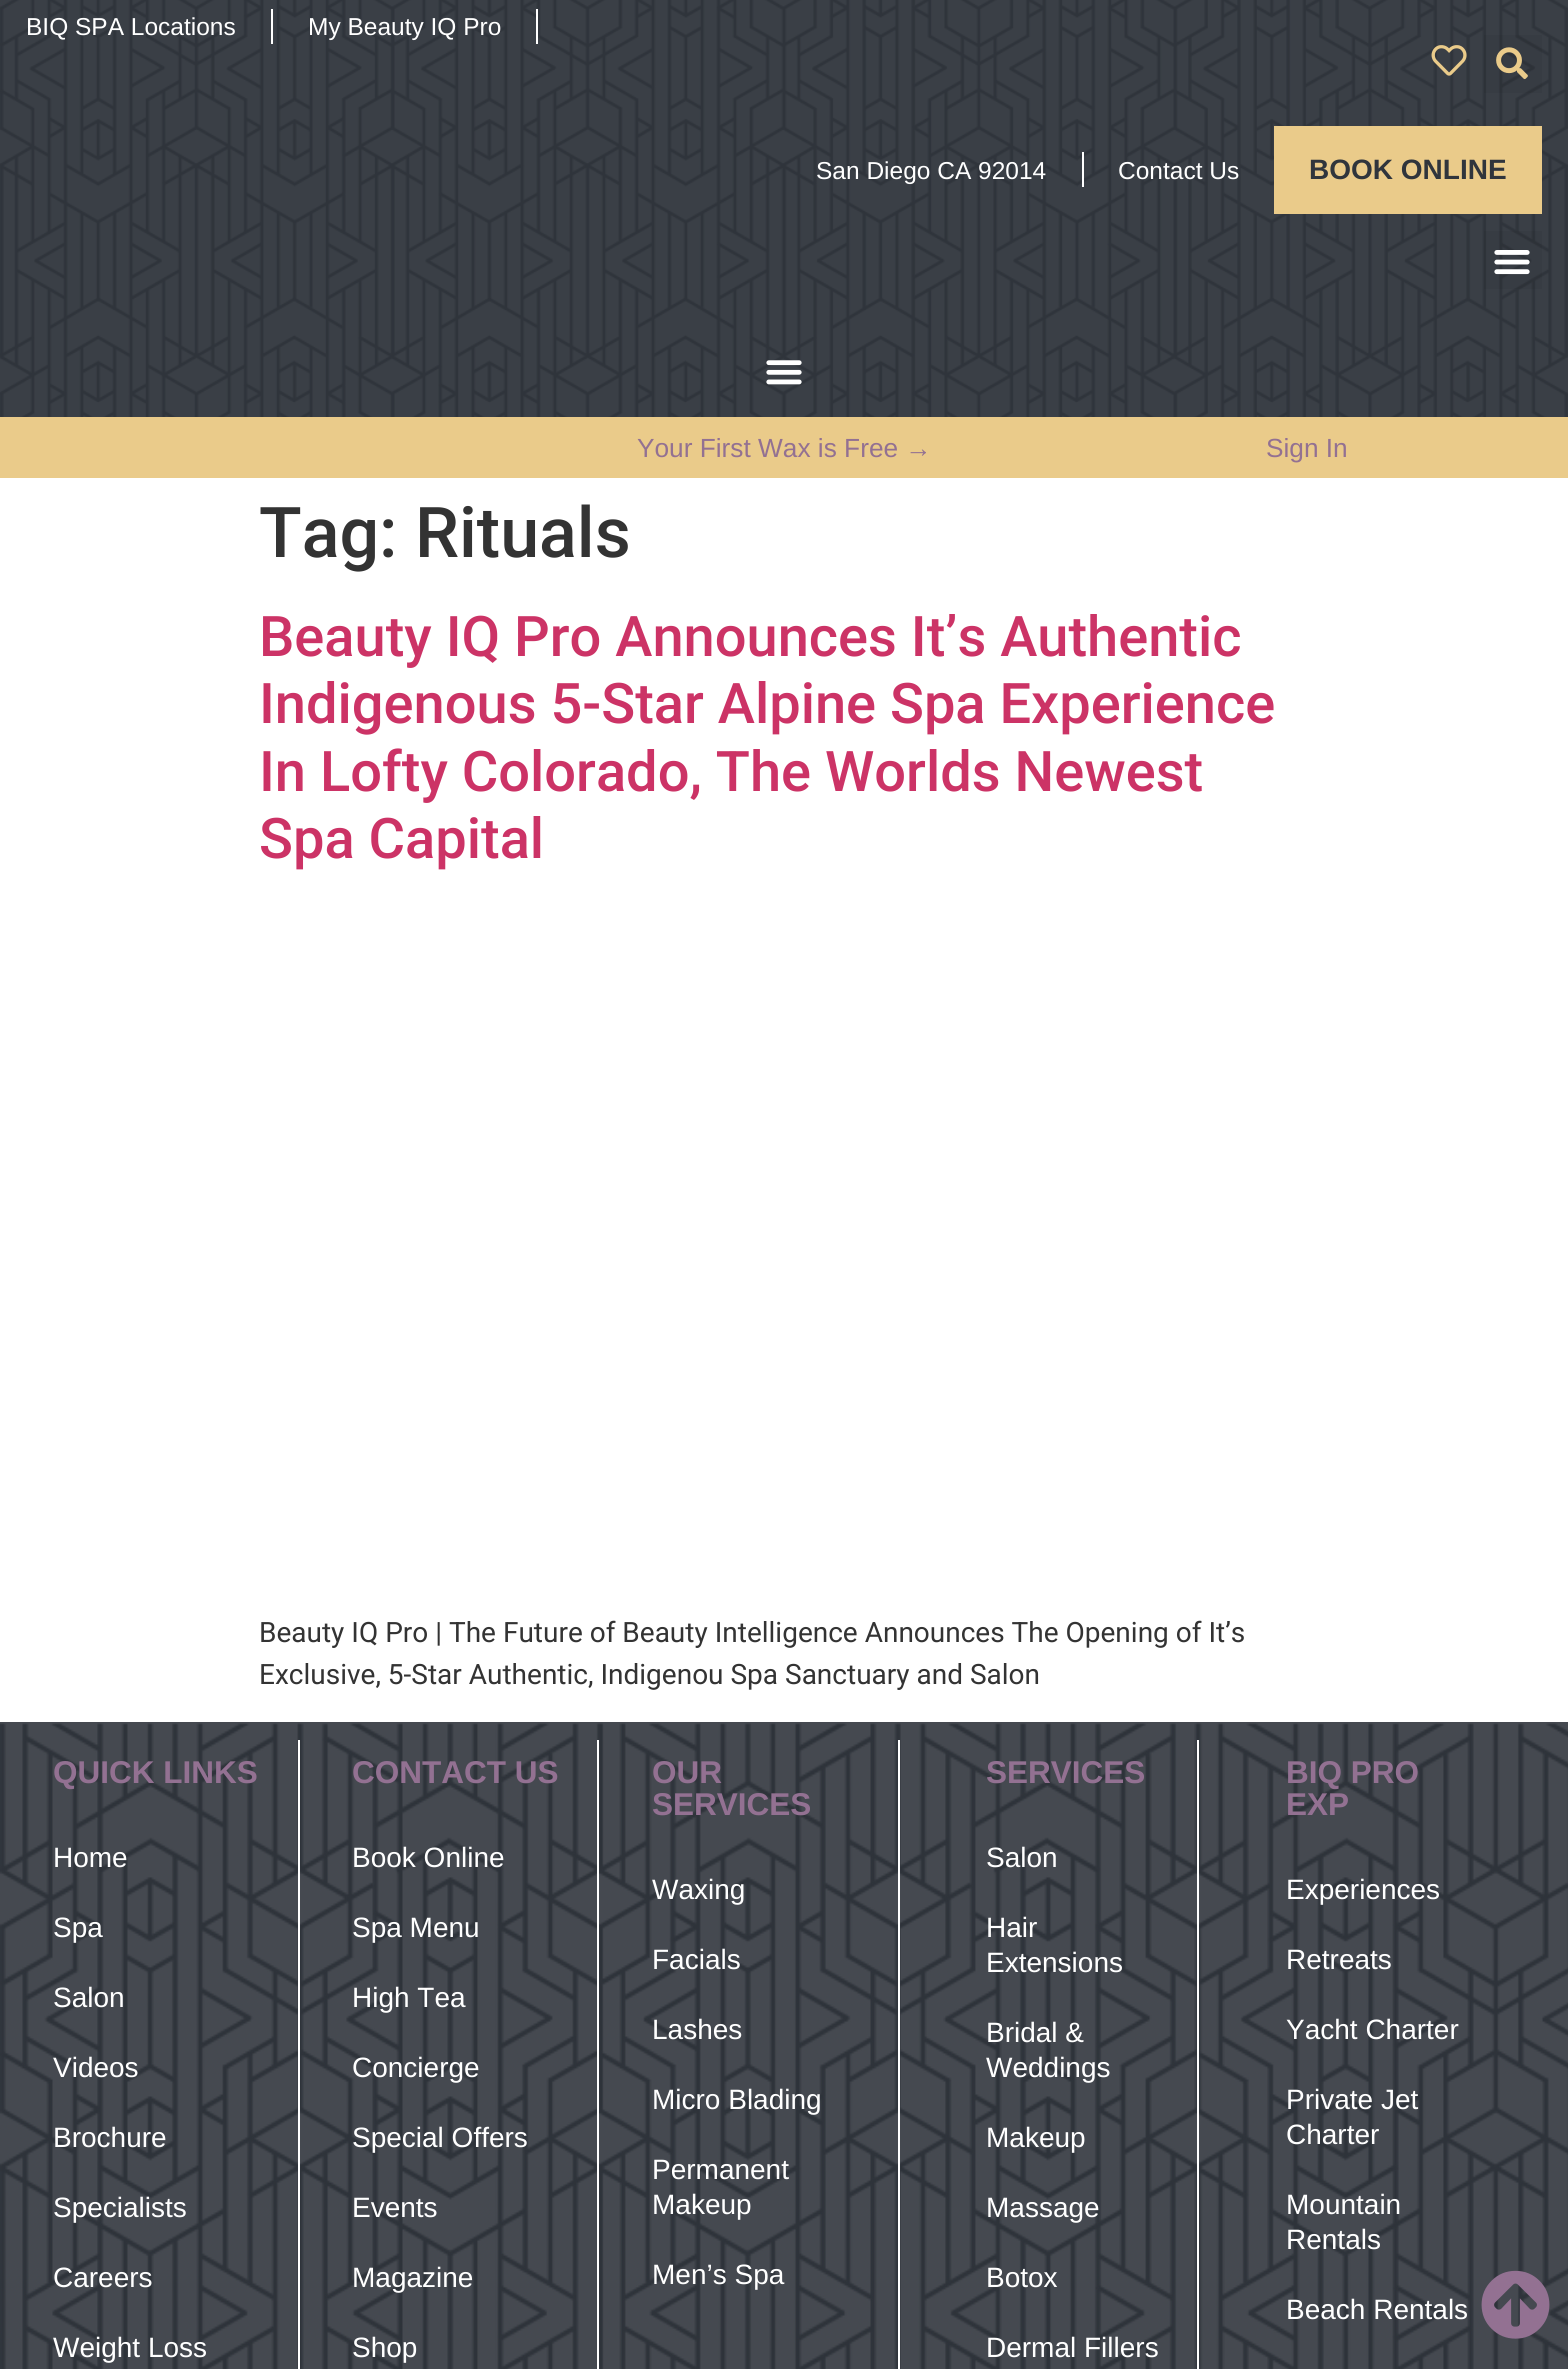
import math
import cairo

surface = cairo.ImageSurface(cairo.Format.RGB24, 1568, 2369)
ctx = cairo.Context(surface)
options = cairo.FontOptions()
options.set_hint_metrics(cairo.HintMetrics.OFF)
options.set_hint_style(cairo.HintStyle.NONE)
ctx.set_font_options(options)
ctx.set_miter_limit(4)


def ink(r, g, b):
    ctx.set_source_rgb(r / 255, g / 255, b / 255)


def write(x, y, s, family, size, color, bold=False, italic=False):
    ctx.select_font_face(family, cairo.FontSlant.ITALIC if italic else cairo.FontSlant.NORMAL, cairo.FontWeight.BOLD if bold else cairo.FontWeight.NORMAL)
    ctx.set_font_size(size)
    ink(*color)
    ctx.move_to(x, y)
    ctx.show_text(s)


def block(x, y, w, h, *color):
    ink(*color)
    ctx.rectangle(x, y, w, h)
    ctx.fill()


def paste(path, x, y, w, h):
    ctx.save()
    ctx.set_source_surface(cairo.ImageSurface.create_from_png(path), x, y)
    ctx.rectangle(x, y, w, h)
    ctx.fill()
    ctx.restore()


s1 = dict(family="Liberation Sans", size=24.5, color=(255, 255, 255))
s2 = dict(family="Liberation Sans", size=28, color=(48, 53, 60), bold=True)
s3 = dict(family="Liberation Sans", size=26.25, color=(147, 113, 146))
s4 = dict(family="Roboto Medium", size=70, color=(51, 51, 51))
s5 = dict(family="Roboto Medium", size=56, color=(204, 51, 102))
s6 = dict(family="Roboto", size=28, color=(51, 51, 51))
s7 = dict(family="Liberation Sans", size=31.5, color=(147, 113, 146), bold=True)
s8 = dict(family="Liberation Sans", size=28, color=(255, 255, 255))

ink(255, 255, 255)
ctx.paint()
block(0, 1722, 1568, 647, 69, 73, 80)
block(0, 0, 1568, 417, 58, 63, 70)
paste("pic1.png", 0, 0, 1568, 417)
block(271, 9, 2, 35, 255, 255, 255)
write(26, 35, "BIQ SPA Locations", **s1)
block(536, 9, 2, 35, 255, 255, 255)
write(308, 35, "My Beauty IQ Pro", **s1)
paste("pic2.png", 1431, 45, 36, 31)
ctx.set_source_rgba(0, 0, 0, 0.05)
ctx.rectangle(1484, 35, 58, 58)
ctx.fill()
paste("pic3.png", 1496, 47, 32, 33)
write(816, 179, "San Diego CA 92014", **s1)
block(1082, 152, 2, 35, 255, 255, 255)
write(1118, 179, "Contact Us", **s1)
block(1274, 126, 268, 88, 234, 203, 138)
write(1309, 179, "BOOK ONLINE", **s2)
ctx.set_source_rgba(0, 0, 0, 0.05)
ctx.rectangle(1484, 231, 58, 58)
ctx.fill()
paste("pic4.png", 1494, 250, 36, 25)
paste("pic5.png", 766, 360, 36, 25)
block(0, 417, 1568, 61, 234, 203, 138)
write(637, 457, "Your First Wax is Free →", **s3)
write(1266, 457, "Sign In", **s3)
write(259, 557, "Tag: Rituals", **s4)
write(259, 656, "Beauty IQ Pro Announces It’s Authentic", **s5)
write(259, 723, "Indigenous 5-Star Alpine Spa Experience", **s5)
write(259, 791, "In Lofty Colorado, The Worlds Newest", **s5)
write(259, 858, "Spa Capital", **s5)
write(259, 1642, "Beauty IQ Pro | The Future of Beauty Intelligence Announces The Opening of It’s", **s6)
write(259, 1684, "Exclusive, 5-Star Authentic, Indigenou Spa Sanctuary and Salon", **s6)
paste("pic6.png", 0, 1722, 1568, 647)
block(298, 1740, 2, 629, 255, 255, 255)
write(53, 1783, "QUICK LINKS", **s7)
write(53, 1867, "Home", **s8)
write(53, 1937, "Spa", **s8)
write(53, 2007, "Salon", **s8)
write(53, 2077, "Videos", **s8)
write(53, 2147, "Brochure", **s8)
write(53, 2217, "Specialists", **s8)
write(53, 2287, "Careers", **s8)
write(53, 2357, "Weight Loss", **s8)
block(597, 1740, 2, 629, 255, 255, 255)
write(352, 1783, "CONTACT US", **s7)
write(352, 1867, "Book Online", **s8)
write(352, 1937, "Spa Menu", **s8)
write(352, 2007, "High Tea", **s8)
write(352, 2077, "Concierge", **s8)
write(352, 2147, "Special Offers", **s8)
write(352, 2217, "Events", **s8)
write(352, 2287, "Magazine", **s8)
write(352, 2357, "Shop", **s8)
block(898, 1740, 2, 629, 255, 255, 255)
write(652, 1783, "OUR", **s7)
write(652, 1815, "SERVICES", **s7)
write(652, 1899, "Waxing", **s8)
write(652, 1969, "Facials", **s8)
write(652, 2039, "Lashes", **s8)
write(652, 2109, "Micro Blading", **s8)
write(652, 2179, "Permanent", **s8)
write(652, 2214, "Makeup", **s8)
write(652, 2284, "Men’s Spa", **s8)
block(1197, 1740, 2, 629, 255, 255, 255)
write(986, 1783, "SERVICES", **s7)
write(986, 1867, "Salon", **s8)
write(986, 1937, "Hair", **s8)
write(986, 1972, "Extensions", **s8)
write(986, 2042, "Bridal &", **s8)
write(986, 2077, "Weddings", **s8)
write(986, 2147, "Makeup", **s8)
write(986, 2217, "Massage", **s8)
write(986, 2287, "Botox", **s8)
write(986, 2357, "Dermal Fillers", **s8)
write(1286, 1783, "BIQ PRO", **s7)
write(1286, 1815, "EXP", **s7)
write(1286, 1899, "Experiences", **s8)
write(1286, 1969, "Retreats", **s8)
write(1286, 2039, "Yacht Charter", **s8)
write(1286, 2109, "Private Jet", **s8)
write(1286, 2144, "Charter", **s8)
write(1286, 2214, "Mountain", **s8)
write(1286, 2249, "Rentals", **s8)
write(1286, 2319, "Beach Rentals", **s8)
paste("pic7.png", 1481, 2270, 69, 69)
surface.write_to_png("screenshot.png")
